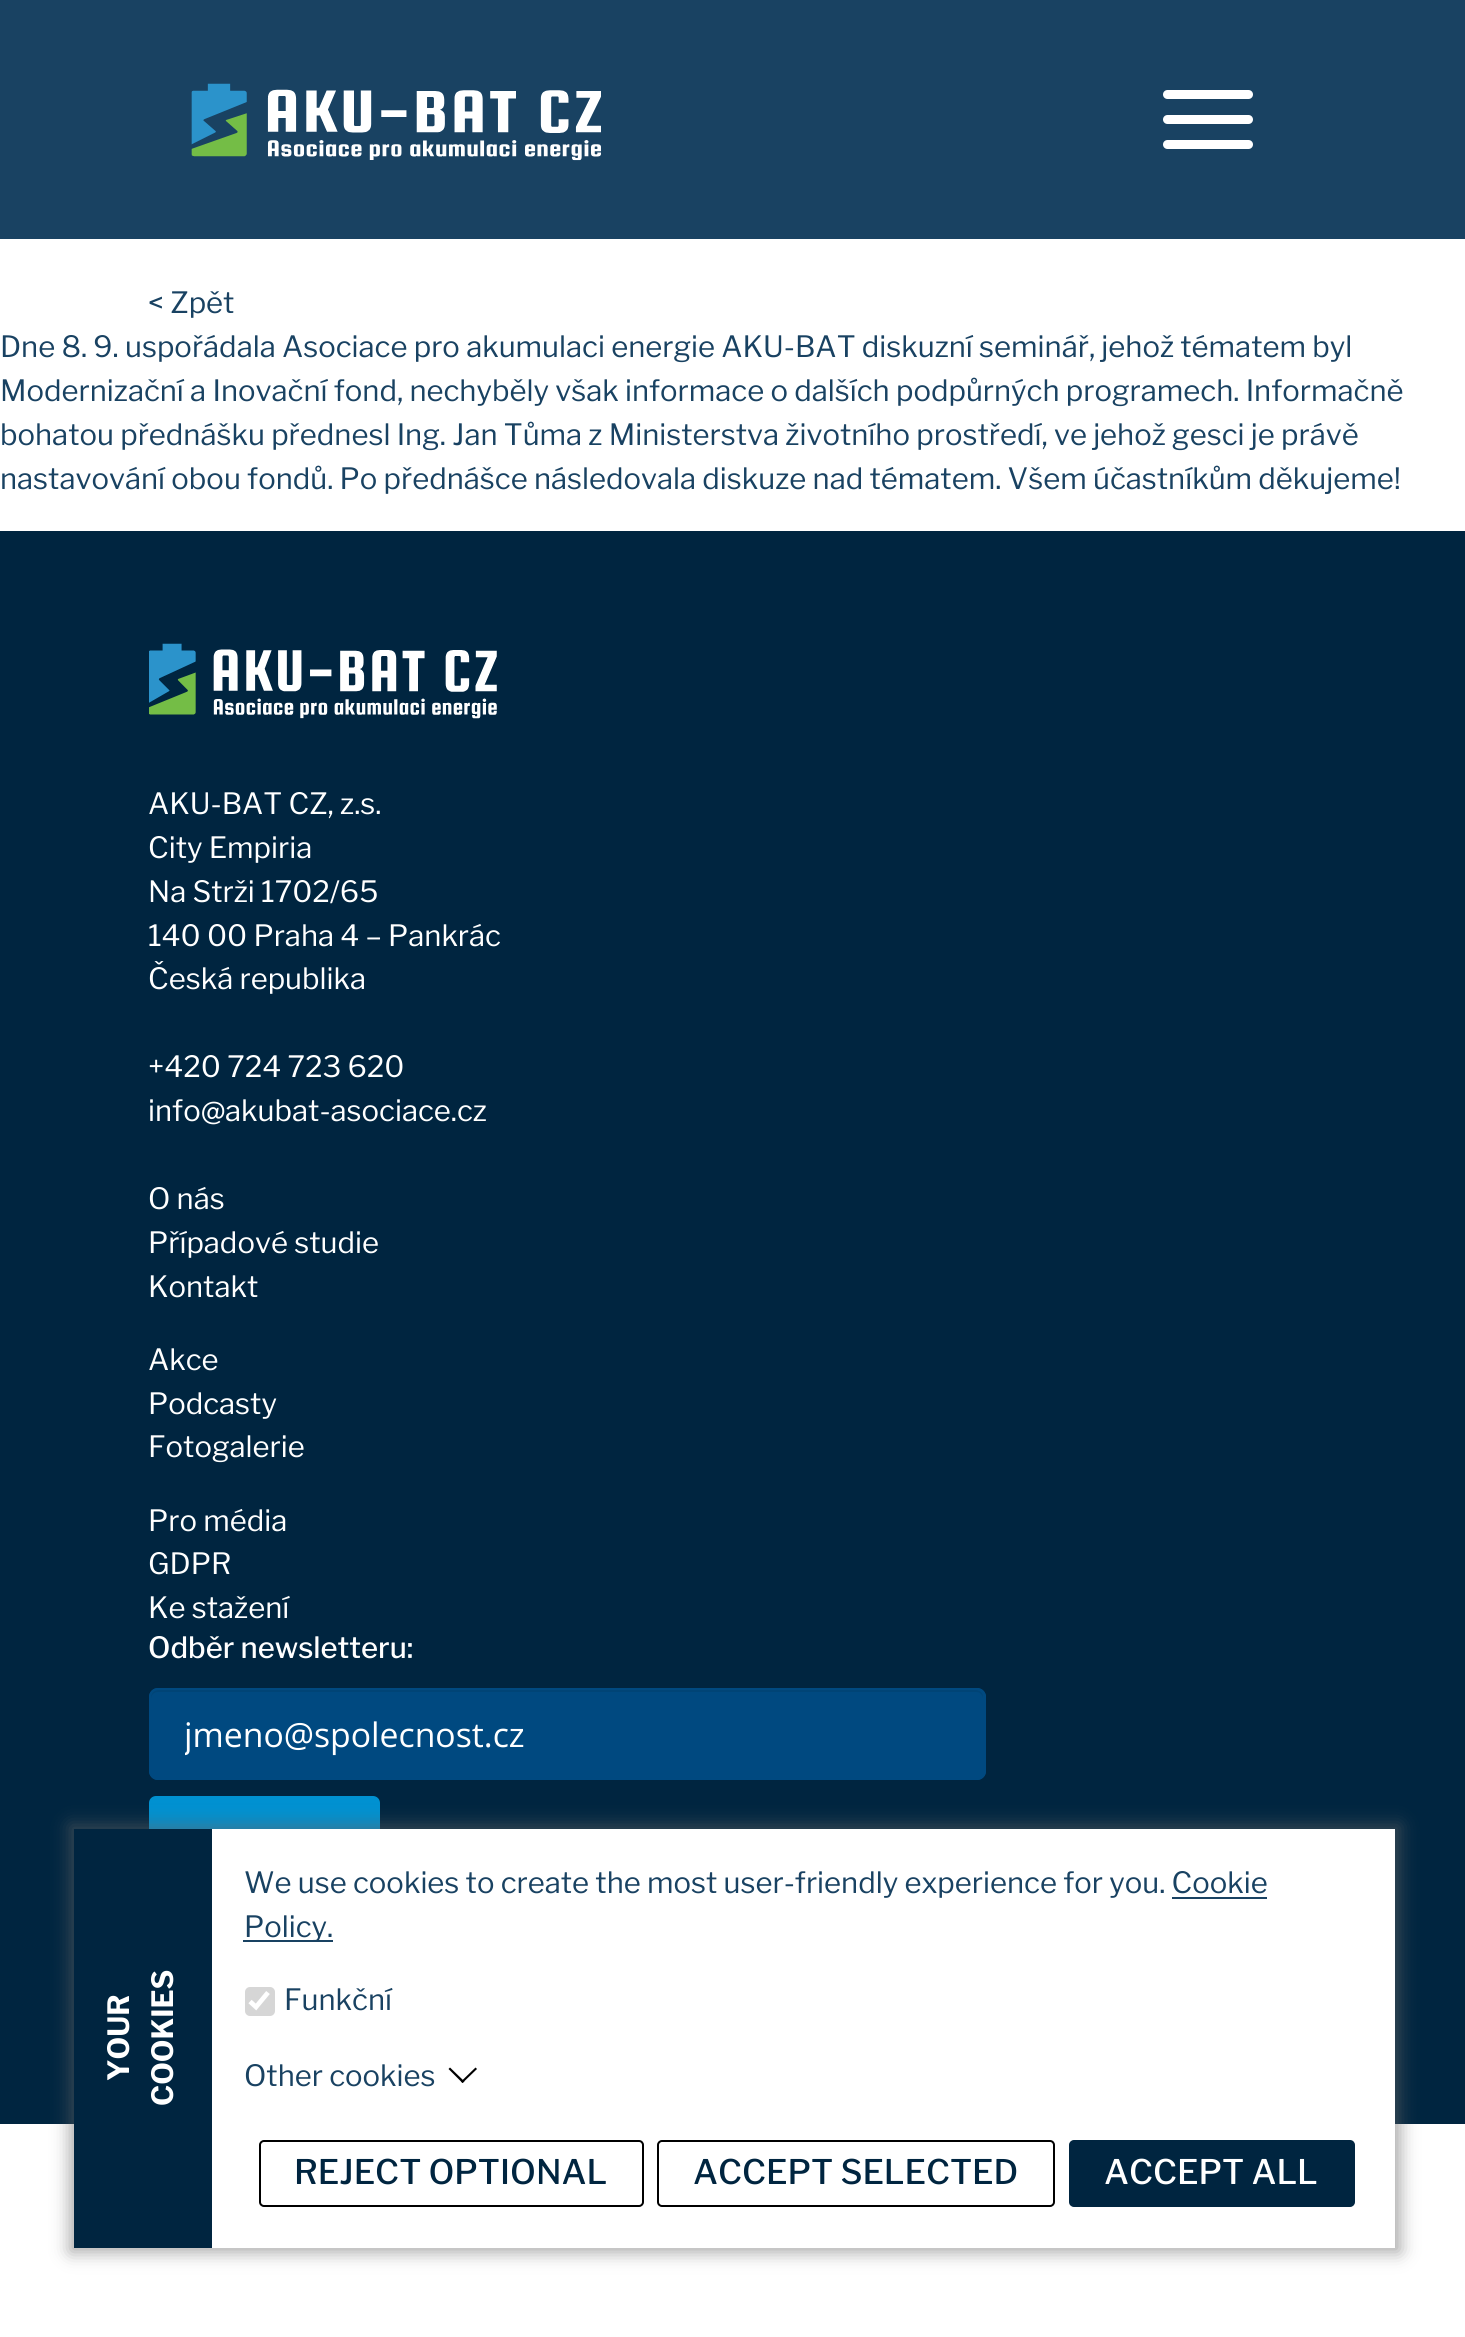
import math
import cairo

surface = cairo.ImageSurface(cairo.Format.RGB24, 1465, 2337)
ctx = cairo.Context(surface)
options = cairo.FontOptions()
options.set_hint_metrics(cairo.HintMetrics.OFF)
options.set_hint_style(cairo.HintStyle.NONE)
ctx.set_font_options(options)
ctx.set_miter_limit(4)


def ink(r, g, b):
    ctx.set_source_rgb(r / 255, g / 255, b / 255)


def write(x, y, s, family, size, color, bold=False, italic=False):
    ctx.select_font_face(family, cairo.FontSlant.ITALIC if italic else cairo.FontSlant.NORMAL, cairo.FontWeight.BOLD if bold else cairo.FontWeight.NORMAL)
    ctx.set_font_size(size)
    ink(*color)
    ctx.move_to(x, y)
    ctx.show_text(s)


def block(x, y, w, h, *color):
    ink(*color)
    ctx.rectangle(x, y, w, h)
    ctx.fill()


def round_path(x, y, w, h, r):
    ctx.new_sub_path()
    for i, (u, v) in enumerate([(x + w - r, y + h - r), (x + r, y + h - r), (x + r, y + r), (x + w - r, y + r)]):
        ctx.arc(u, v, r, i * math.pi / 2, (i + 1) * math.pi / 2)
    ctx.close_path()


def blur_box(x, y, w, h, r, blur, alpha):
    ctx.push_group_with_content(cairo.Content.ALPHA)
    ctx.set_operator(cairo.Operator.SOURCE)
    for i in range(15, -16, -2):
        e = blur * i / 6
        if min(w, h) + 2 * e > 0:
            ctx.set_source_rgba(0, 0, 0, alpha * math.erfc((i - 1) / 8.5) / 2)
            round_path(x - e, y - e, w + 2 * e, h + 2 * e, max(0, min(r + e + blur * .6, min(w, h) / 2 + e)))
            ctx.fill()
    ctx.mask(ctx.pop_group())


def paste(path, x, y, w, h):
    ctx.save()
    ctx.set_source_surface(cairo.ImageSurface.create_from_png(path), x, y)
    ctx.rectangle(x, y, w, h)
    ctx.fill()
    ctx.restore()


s1 = dict(family="Libre Franklin", size=29.25, color=(25, 66, 98))
s2 = dict(family="Libre Franklin", size=29.25, color=(255, 255, 255))
s3 = dict(family="Libre Franklin Medium", size=29.25, color=(255, 255, 255))
s4 = dict(family="Open Sans", size=33.75, color=(255, 255, 255))
s5 = dict(family="Libre Franklin", size=29.25, color=(255, 255, 255), bold=True)
s6 = dict(family="Libre Franklin Medium", size=33.75, color=(0, 37, 64))
s7 = dict(family="Libre Franklin Medium", size=33.75, color=(255, 255, 255))

ink(255, 255, 255)
ctx.paint()
block(0, 0, 1465, 239, 25, 66, 98)
paste("pic1.png", 191, 83, 410, 78)
ink(255, 255, 255)
round_path(1163, 90, 90, 9, 4.5)
ctx.fill()
round_path(1163, 115, 90, 9, 4.5)
ctx.fill()
round_path(1163, 140, 90, 9, 4.5)
ctx.fill()
write(148, 313, "< Zpět", **s1)
write(0, 357, "Dne 8. 9. uspořádala Asociace pro akumulaci energie AKU-BAT diskuzní seminář, jehož tématem byl", **s1)
write(0, 401, "Modernizační a Inovační fond, nechyběly však informace o dalších podpůrných programech. Informačně", **s1)
write(0, 445, "bohatou přednášku přednesl Ing. Jan Tůma z Ministerstva životního prostředí, ve jehož gesci je právě", **s1)
write(0, 489, "nastavování obou fondů. Po přednášce následovala diskuze nad tématem. Všem účastníkům děkujeme!", **s1)
block(0, 531, 1465, 1593, 0, 37, 64)
paste("pic2.png", 149, 643, 348, 76)
write(148, 814, "AKU-BAT CZ, z.s.", **s2)
write(148, 858, "City Empiria", **s2)
write(148, 902, "Na Strži 1702/65", **s2)
write(148, 946, "140 00 Praha 4 – Pankrác", **s2)
write(148, 989, "Česká republika", **s2)
write(148, 1077, "+420 724 723 620", **s2)
write(148, 1121, "info@akubat-asociace.cz", **s2)
write(148, 1209, "O nás", **s2)
write(148, 1253, "Případové studie", **s2)
write(148, 1297, "Kontakt", **s2)
write(148, 1370, "Akce", **s2)
write(148, 1414, "Podcasty", **s2)
write(148, 1457, "Fotogalerie", **s2)
write(148, 1531, "Pro média", **s2)
write(148, 1574, "GDPR", **s2)
write(148, 1618, "Ke stažení", **s2)
write(148, 1658, "Odběr newsletteru:", **s3)
ink(0, 73, 128)
round_path(149, 1688, 837, 92, 9)
ctx.fill()
ink(0, 68, 118)
ctx.new_path()
ctx.move_to(158, 1692)
ctx.line_to(976, 1692)
ctx.curve_to(980, 1692, 983, 1695, 983, 1699)
ctx.line_to(983, 1697)
ctx.curve_to(983, 1693, 980, 1690, 976, 1690)
ctx.line_to(158, 1690)
ctx.curve_to(154, 1690, 151, 1693, 151, 1697)
ctx.line_to(151, 1699)
ctx.curve_to(151, 1695, 154, 1692, 158, 1692)
ctx.close_path()
ctx.fill()
round_path(150, 1689, 835, 90, 8)
ink(0, 73, 128)
ctx.stroke()
ctx.save()
ctx.rectangle(185, 1712, 765, 45)
ctx.clip()
write(184, 1747, "jmeno@spolecnost.cz", **s4)
ctx.restore()
ink(0, 145, 209)
round_path(149, 1796, 231, 90, 7)
ctx.fill()
ink(99, 99, 99)
blur_box(70, 1825, 1330, 427, 0, 9, 0.58)
block(74, 1829, 138, 419, 0, 37, 64)
ctx.save()
ctx.translate(129, 2081)
ctx.rotate(-90 * math.pi / 180)
write(0, 0, "YOUR", **s5)
ctx.restore()
ctx.save()
ctx.translate(173, 2106)
ctx.rotate(-90 * math.pi / 180)
write(0, 0, "COOKIES", **s5)
ctx.restore()
block(212, 1829, 1183, 419, 255, 255, 255)
write(244, 1893, "We use cookies to create the most user-friendly experience for you. Cookie", **s1)
block(243, 1940, 90, 2, 25, 66, 98)
write(244, 1937, "Policy.", **s1)
block(1172, 1897, 95, 2, 25, 66, 98)
ink(214, 214, 214)
round_path(245, 1987, 30, 29, 5)
ctx.fill()
ctx.new_path()
ctx.move_to(250, 2001.5)
ctx.line_to(256, 2007)
ctx.line_to(268, 1992.5)
ink(255, 255, 255)
ctx.set_line_width(4.7)
ctx.stroke()
write(284, 2010, "Funkční", **s1)
write(244, 2086, "Other cookies", **s1)
ink(0, 0, 0)
ctx.new_path()
ctx.move_to(475.5, 2067.5)
ctx.line_to(477, 2069)
ctx.line_to(462.5, 2083)
ctx.line_to(461, 2081.5)
ctx.close_path()
ctx.fill()
ctx.new_path()
ctx.move_to(450, 2067.5)
ctx.line_to(464.5, 2081.5)
ctx.line_to(462.5, 2083)
ctx.line_to(448.5, 2069)
ctx.close_path()
ctx.fill()
round_path(260, 2141, 383, 65, 4)
ctx.set_line_width(2)
ctx.stroke()
write(294, 2184, "REJECT OPTIONAL", **s6)
round_path(658, 2141, 396, 65, 4)
ink(0, 0, 0)
ctx.stroke()
write(693, 2184, "ACCEPT SELECTED", **s6)
round_path(1070, 2141, 284, 65, 4)
ctx.fill_preserve()
ctx.stroke()
write(1104, 2184, "ACCEPT ALL", **s7)
surface.write_to_png("screenshot.png")
